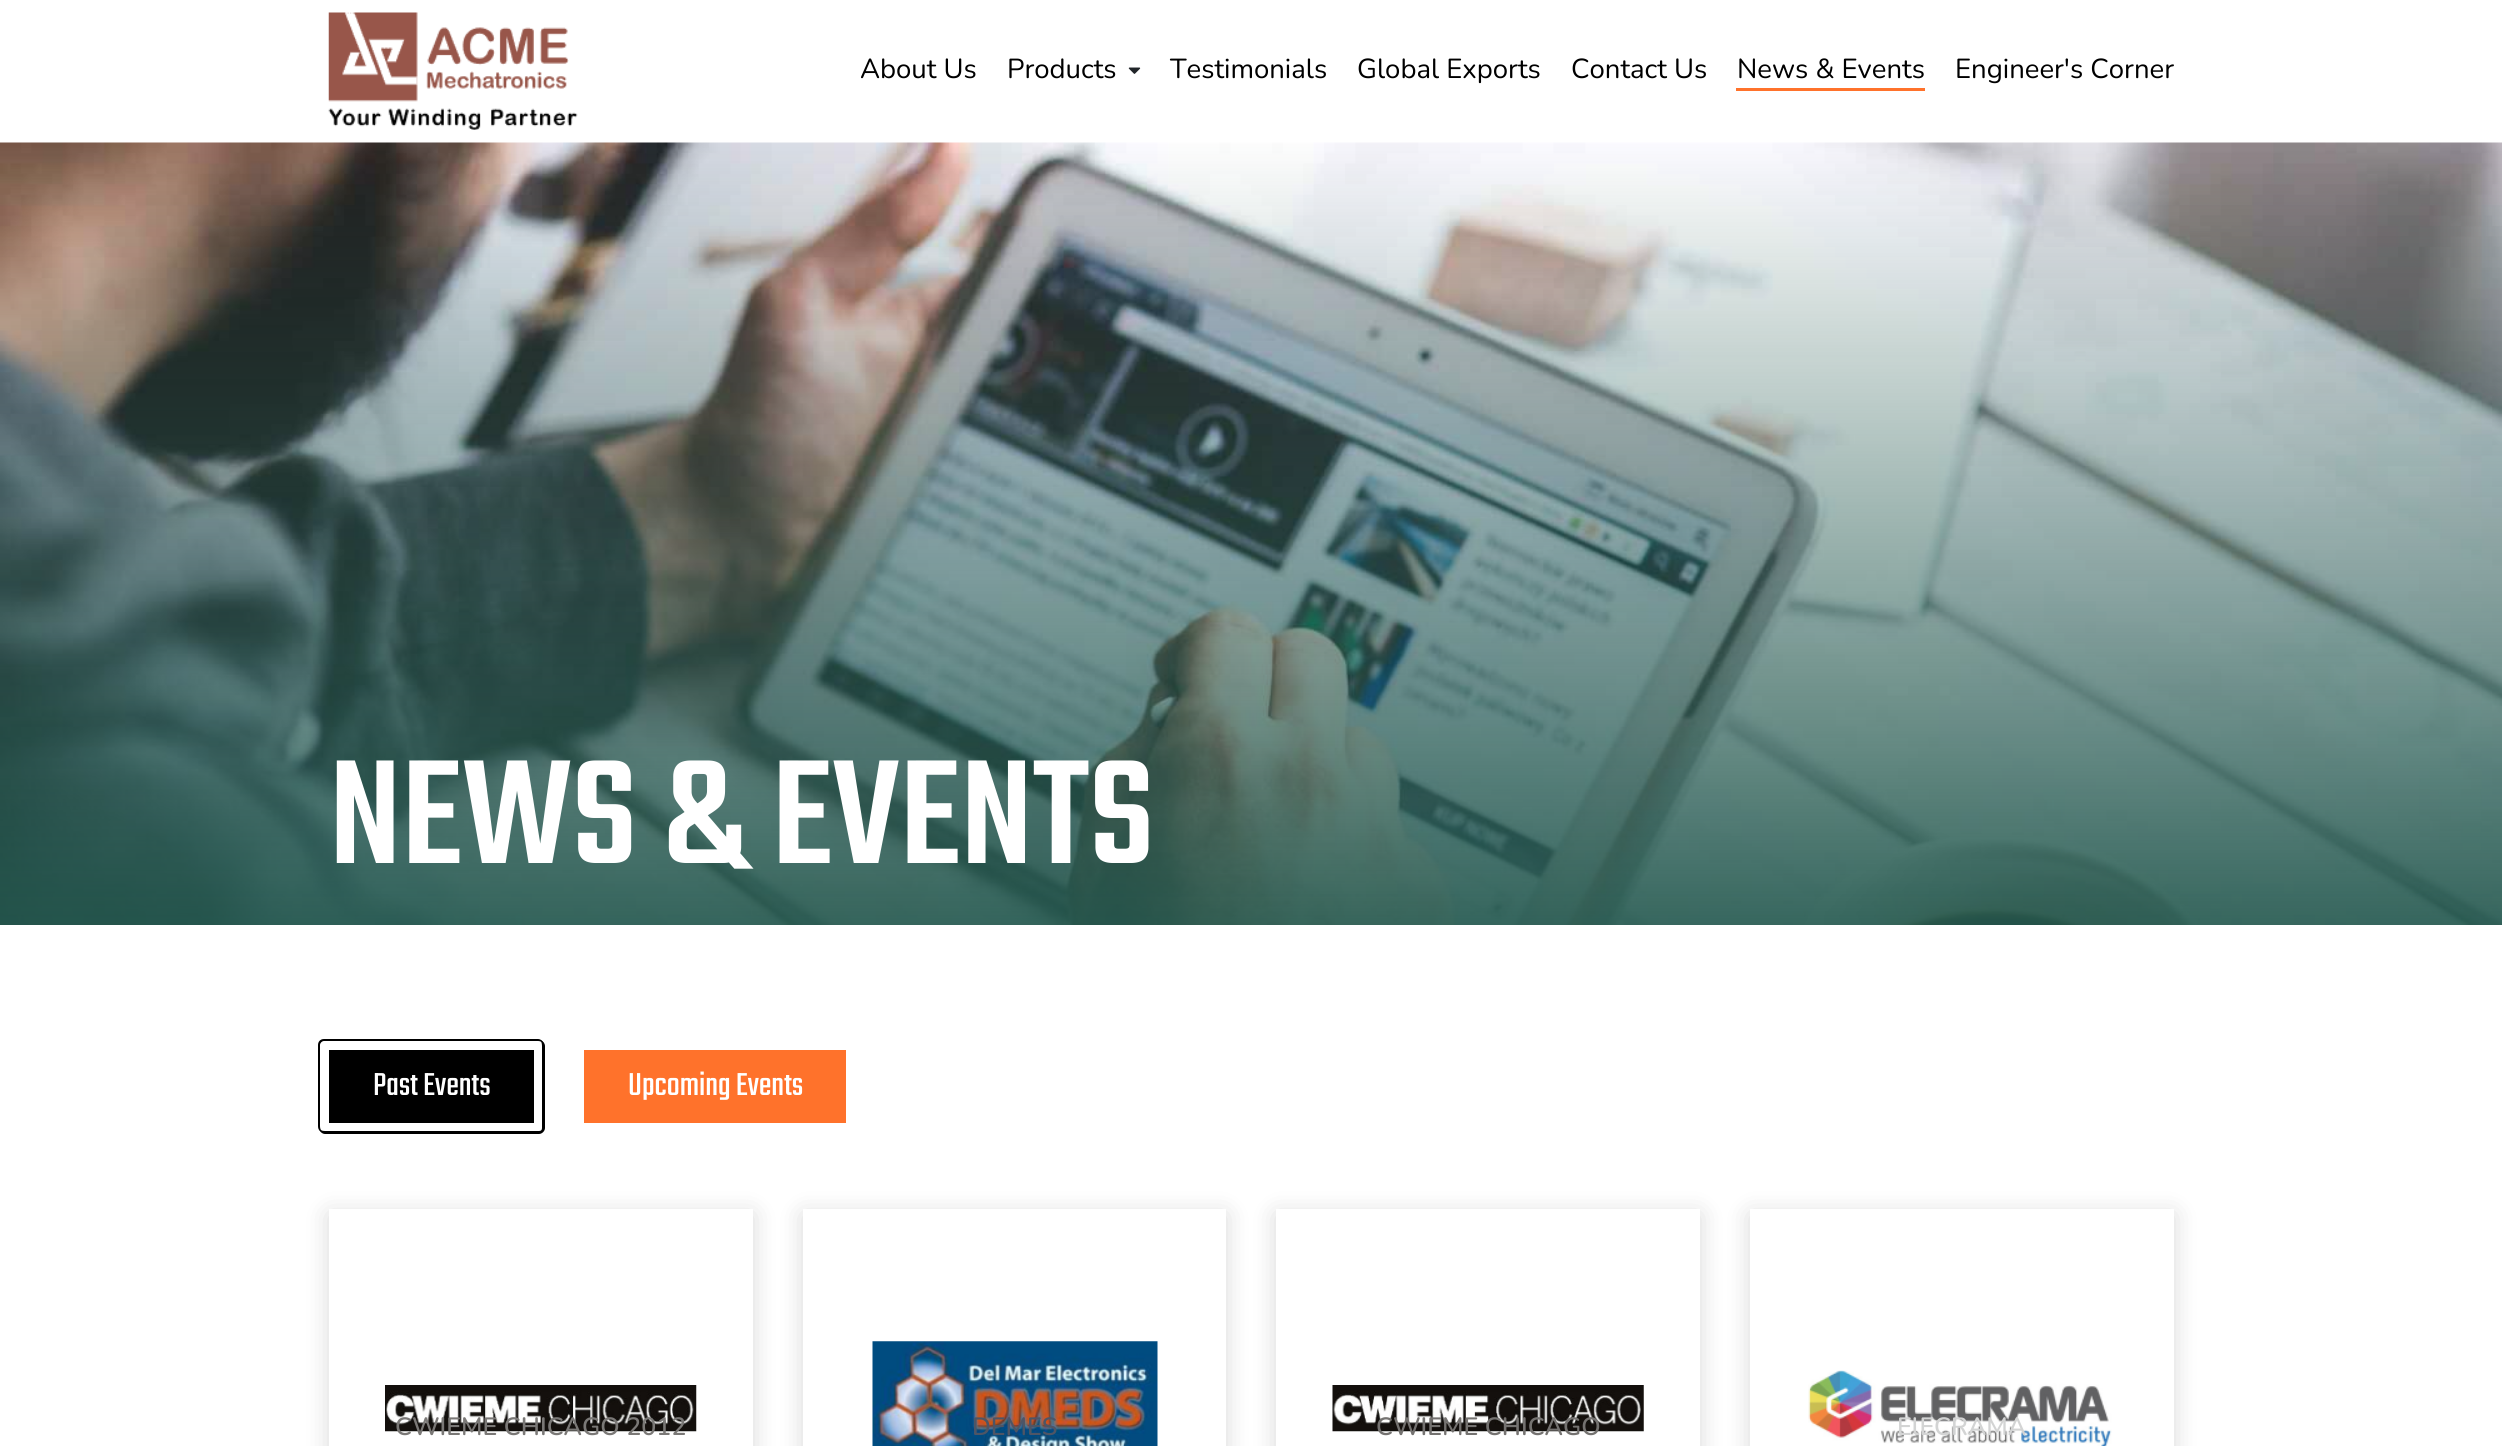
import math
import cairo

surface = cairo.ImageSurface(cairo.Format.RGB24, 2502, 1446)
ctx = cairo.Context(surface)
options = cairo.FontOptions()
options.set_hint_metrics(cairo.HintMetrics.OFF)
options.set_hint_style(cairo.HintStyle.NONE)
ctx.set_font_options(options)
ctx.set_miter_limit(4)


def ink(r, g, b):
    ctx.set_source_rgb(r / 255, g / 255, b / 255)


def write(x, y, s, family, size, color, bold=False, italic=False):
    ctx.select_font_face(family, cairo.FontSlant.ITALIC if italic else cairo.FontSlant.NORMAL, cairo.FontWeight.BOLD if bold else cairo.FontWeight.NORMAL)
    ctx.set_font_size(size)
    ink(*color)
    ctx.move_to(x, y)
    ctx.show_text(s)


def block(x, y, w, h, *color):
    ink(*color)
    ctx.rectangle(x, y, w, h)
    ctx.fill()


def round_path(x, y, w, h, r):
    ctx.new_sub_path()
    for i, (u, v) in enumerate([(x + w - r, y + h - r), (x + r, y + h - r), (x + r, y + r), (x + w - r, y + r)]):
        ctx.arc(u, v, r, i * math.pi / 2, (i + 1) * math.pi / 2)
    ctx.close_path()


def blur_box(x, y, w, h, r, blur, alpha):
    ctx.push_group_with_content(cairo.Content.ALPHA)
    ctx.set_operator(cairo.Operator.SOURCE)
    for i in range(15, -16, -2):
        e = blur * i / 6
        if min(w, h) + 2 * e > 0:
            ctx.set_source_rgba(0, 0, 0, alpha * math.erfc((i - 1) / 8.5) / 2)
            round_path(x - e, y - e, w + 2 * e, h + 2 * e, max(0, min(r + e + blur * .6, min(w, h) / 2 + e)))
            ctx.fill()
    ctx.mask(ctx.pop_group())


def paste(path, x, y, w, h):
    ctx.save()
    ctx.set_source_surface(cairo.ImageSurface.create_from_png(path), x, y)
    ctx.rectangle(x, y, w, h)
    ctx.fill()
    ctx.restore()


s1 = dict(family="Nunito", size=27.5, color=(0, 0, 0))
s2 = dict(family="Teko Medium", size=162.5, color=(255, 255, 255))
s3 = dict(family="Teko", size=35, color=(255, 255, 255))
s4 = dict(family="Nunito SemiBold", size=25, color=(122, 120, 118))
s5 = dict(family="Nunito SemiBold", size=25, color=(78, 85, 101))
s6 = dict(family="Nunito SemiBold", size=25, color=(116, 114, 112))
s7 = dict(family="Nunito SemiBold", size=25, color=(211, 212, 212))

ink(255, 255, 255)
ctx.paint()
ctx.save()
ctx.set_fill_rule(cairo.FillRule.EVEN_ODD)
ctx.new_path()
ctx.move_to(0, 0)
ctx.line_to(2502, 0)
ctx.line_to(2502, 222)
ctx.line_to(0, 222)
ctx.close_path()
ctx.move_to(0, 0)
ctx.line_to(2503, 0)
ctx.line_to(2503, 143)
ctx.line_to(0, 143)
ctx.close_path()
ctx.clip()
ink(0, 0, 0)
blur_box(-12, 6, 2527, 168, 0, 15.5, 0.28)
ctx.restore()
paste("pic1.png", 328, 12, 250, 118)
write(860, 78, "About Us", **s1)
write(1007, 78, "Products", **s1)
paste("pic2.png", 1128, 67, 13, 7)
write(1170, 78, "Testimonials", **s1)
write(1357, 78, "Global Exports", **s1)
write(1571, 78, "Contact Us", **s1)
write(1737, 78, "News & Events", **s1)
block(1736, 88, 189, 3, 255, 114, 43)
write(1955, 78, "Engineer's Corner", **s1)
paste("pic3.png", 0, 142, 2502, 783)
write(329, 863, "NEWS & EVENTS", **s2)
block(329, 1050, 205, 73, 0, 0, 0)
write(373, 1095, "Past Events", **s3)
ink(0, 0, 0)
ctx.set_fill_rule(cairo.FillRule.EVEN_ODD)
ctx.new_path()
ctx.move_to(325, 1040)
ctx.line_to(539, 1040)
ctx.curve_to(542, 1040, 545, 1043, 545, 1046)
ctx.line_to(545, 1128)
ctx.curve_to(545, 1131, 542, 1134, 539, 1134)
ctx.line_to(325, 1134)
ctx.curve_to(322, 1134, 319, 1131, 319, 1128)
ctx.line_to(319, 1046)
ctx.curve_to(319, 1043, 322, 1040, 325, 1040)
ctx.close_path()
ctx.move_to(325, 1040)
ctx.line_to(539, 1040)
ctx.curve_to(541, 1040, 542, 1043, 542, 1046)
ctx.line_to(542, 1128)
ctx.curve_to(542, 1130, 541, 1131, 539, 1131)
ctx.line_to(325, 1131)
ctx.curve_to(322, 1131, 319, 1130, 319, 1128)
ctx.line_to(319, 1046)
ctx.curve_to(319, 1043, 322, 1040, 325, 1040)
ctx.close_path()
ctx.fill()
ctx.new_path()
ctx.move_to(324, 1039)
ctx.line_to(538, 1039)
ctx.curve_to(541, 1039, 544, 1042, 544, 1045)
ctx.line_to(544, 1126)
ctx.curve_to(544, 1130, 541, 1132, 538, 1132)
ctx.line_to(324, 1132)
ctx.curve_to(320, 1132, 318, 1130, 318, 1126)
ctx.line_to(318, 1045)
ctx.curve_to(318, 1042, 320, 1039, 324, 1039)
ctx.close_path()
ctx.move_to(324, 1041)
ctx.line_to(538, 1041)
ctx.curve_to(541, 1041, 544, 1043, 544, 1045)
ctx.line_to(544, 1126)
ctx.curve_to(544, 1130, 541, 1132, 538, 1132)
ctx.line_to(324, 1132)
ctx.curve_to(322, 1132, 320, 1130, 320, 1126)
ctx.line_to(320, 1045)
ctx.curve_to(320, 1043, 322, 1041, 324, 1041)
ctx.close_path()
ctx.fill()
block(584, 1050, 262, 73, 255, 114, 43)
write(628, 1095, "Upcoming Events", **s3)
ink(0, 0, 0)
blur_box(329, 1214, 424, 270, 0, 12.5, 0.15)
block(329, 1209, 424, 237, 255, 255, 255)
paste("pic4.png", 385, 1385, 312, 47)
write(395, 1435, "CWIEME CHICAGO 2012", **s4)
ctx.save()
ctx.new_path()
ctx.move_to(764, 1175)
ctx.line_to(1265, 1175)
ctx.line_to(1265, 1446)
ctx.line_to(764, 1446)
ctx.close_path()
ctx.move_to(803, 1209)
ctx.line_to(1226, 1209)
ctx.line_to(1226, 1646)
ctx.line_to(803, 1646)
ctx.close_path()
ctx.clip()
ink(0, 0, 0)
blur_box(803, 1214, 423, 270, 0, 12.5, 0.15)
ctx.restore()
paste("pic5.png", 872, 1341, 286, 105)
write(972, 1435, "DEMES", **s5)
ink(0, 0, 0)
blur_box(1276, 1214, 424, 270, 0, 12.5, 0.15)
block(1276, 1209, 424, 237, 255, 255, 255)
paste("pic6.png", 1332, 1385, 312, 47)
write(1376, 1435, "CWIEME CHICAGO", **s6)
ink(0, 0, 0)
blur_box(1750, 1214, 424, 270, 0, 12.5, 0.15)
block(1750, 1209, 424, 237, 255, 255, 255)
paste("pic7.png", 1808, 1370, 304, 76)
write(1897, 1435, "ElECRAMA", **s7)
surface.write_to_png("screenshot.png")
